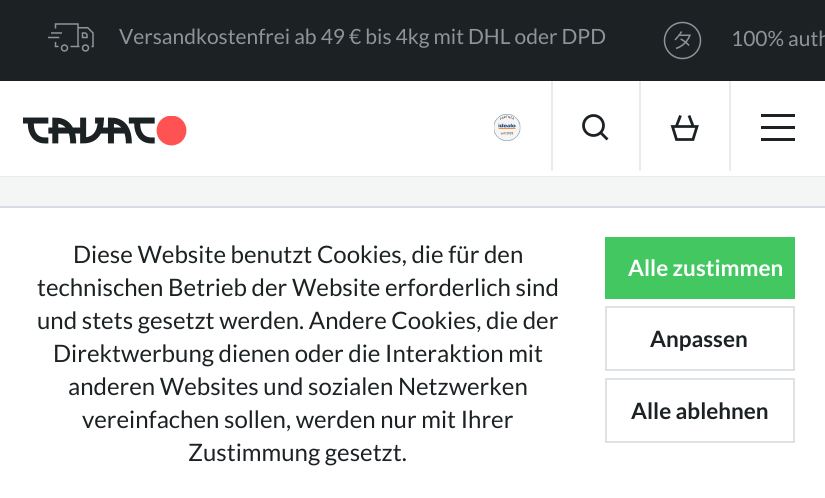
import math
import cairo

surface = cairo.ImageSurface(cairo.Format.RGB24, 825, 498)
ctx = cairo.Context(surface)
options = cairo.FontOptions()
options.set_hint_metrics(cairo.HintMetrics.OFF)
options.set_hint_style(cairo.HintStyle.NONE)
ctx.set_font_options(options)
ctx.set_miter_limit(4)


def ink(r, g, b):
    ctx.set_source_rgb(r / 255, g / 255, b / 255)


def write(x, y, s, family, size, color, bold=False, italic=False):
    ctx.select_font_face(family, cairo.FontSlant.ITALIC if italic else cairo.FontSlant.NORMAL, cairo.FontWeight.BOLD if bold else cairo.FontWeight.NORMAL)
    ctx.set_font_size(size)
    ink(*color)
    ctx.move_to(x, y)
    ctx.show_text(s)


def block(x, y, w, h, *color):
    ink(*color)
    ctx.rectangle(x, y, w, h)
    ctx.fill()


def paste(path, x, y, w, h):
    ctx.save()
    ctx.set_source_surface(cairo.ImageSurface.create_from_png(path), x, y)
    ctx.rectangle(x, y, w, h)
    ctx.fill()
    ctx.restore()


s1 = dict(family="Lato", size=21, color=(139, 149, 154))
s2 = dict(family="Lato", size=24, color=(28, 34, 36))
s3 = dict(family="Lato", size=22.5, color=(255, 255, 255), bold=True)
s4 = dict(family="Lato", size=22.5, color=(28, 34, 36), bold=True)

ink(255, 255, 255)
ctx.paint()
block(0, 176, 825, 1, 233, 236, 238)
block(0, 0, 825, 81, 28, 34, 36)
paste("pic1.png", 48, 23, 46, 29)
write(119, 44, "Versandkostenfrei ab 49 € bis 4kg mit DHL oder DPD", **s1)
paste("pic2.png", 663, 21, 39, 39)
write(731, 46, "100% auth", **s1)
paste("pic3.png", 23, 116, 164, 30)
paste("pic4.png", 494, 114, 27, 27)
block(551, 81, 2, 90, 233, 236, 238)
ctx.arc(593.5, 125.5, 10, 0, 2 * math.pi)
ink(28, 34, 36)
ctx.set_line_width(2.8)
ctx.stroke()
ctx.new_path()
ctx.move_to(600.5, 132.5)
ctx.line_to(607.5, 139.5)
ctx.stroke()
block(639, 81, 2, 90, 233, 236, 238)
ctx.new_path()
ctx.move_to(676.5, 139.5)
ctx.line_to(672.5, 126.5)
ctx.line_to(697, 126.5)
ctx.line_to(693, 139.5)
ctx.close_path()
ctx.move_to(676.5, 126)
ctx.line_to(680.5, 115.5)
ctx.move_to(693, 126)
ctx.line_to(689, 115.5)
ink(28, 34, 36)
ctx.stroke()
block(729, 81, 2, 90, 233, 236, 238)
block(761, 114, 34, 3, 28, 34, 36)
block(761, 126, 34, 3, 28, 34, 36)
block(761, 138, 34, 3, 28, 34, 36)
block(0, 177, 825, 29, 244, 246, 246)
block(0, 206, 825, 2, 218, 218, 229)
write(73, 263, "Diese Website benutzt Cookies, die für den", **s2)
write(37, 296, "technischen Betrieb der Website erforderlich sind", **s2)
write(37, 329, "und stets gesetzt werden. Andere Cookies, die der", **s2)
write(53, 362, "Direktwerbung dienen oder die Interaktion mit", **s2)
write(68, 395, "anderen Websites und sozialen Netzwerken", **s2)
write(82, 428, "vereinfachen sollen, werden nur mit Ihrer", **s2)
write(188, 461, "Zustimmung gesetzt.", **s2)
block(605, 237, 190, 62, 67, 200, 97)
write(628, 276, "Alle zustimmen", **s3)
ctx.rectangle(606, 307, 188, 63)
ink(222, 226, 228)
ctx.set_line_width(2)
ctx.stroke()
write(650, 347, "Anpassen", **s4)
ctx.rectangle(606, 379, 188, 63)
ink(222, 226, 228)
ctx.stroke()
write(631, 419, "Alle ablehnen", **s4)
surface.write_to_png("screenshot.png")
